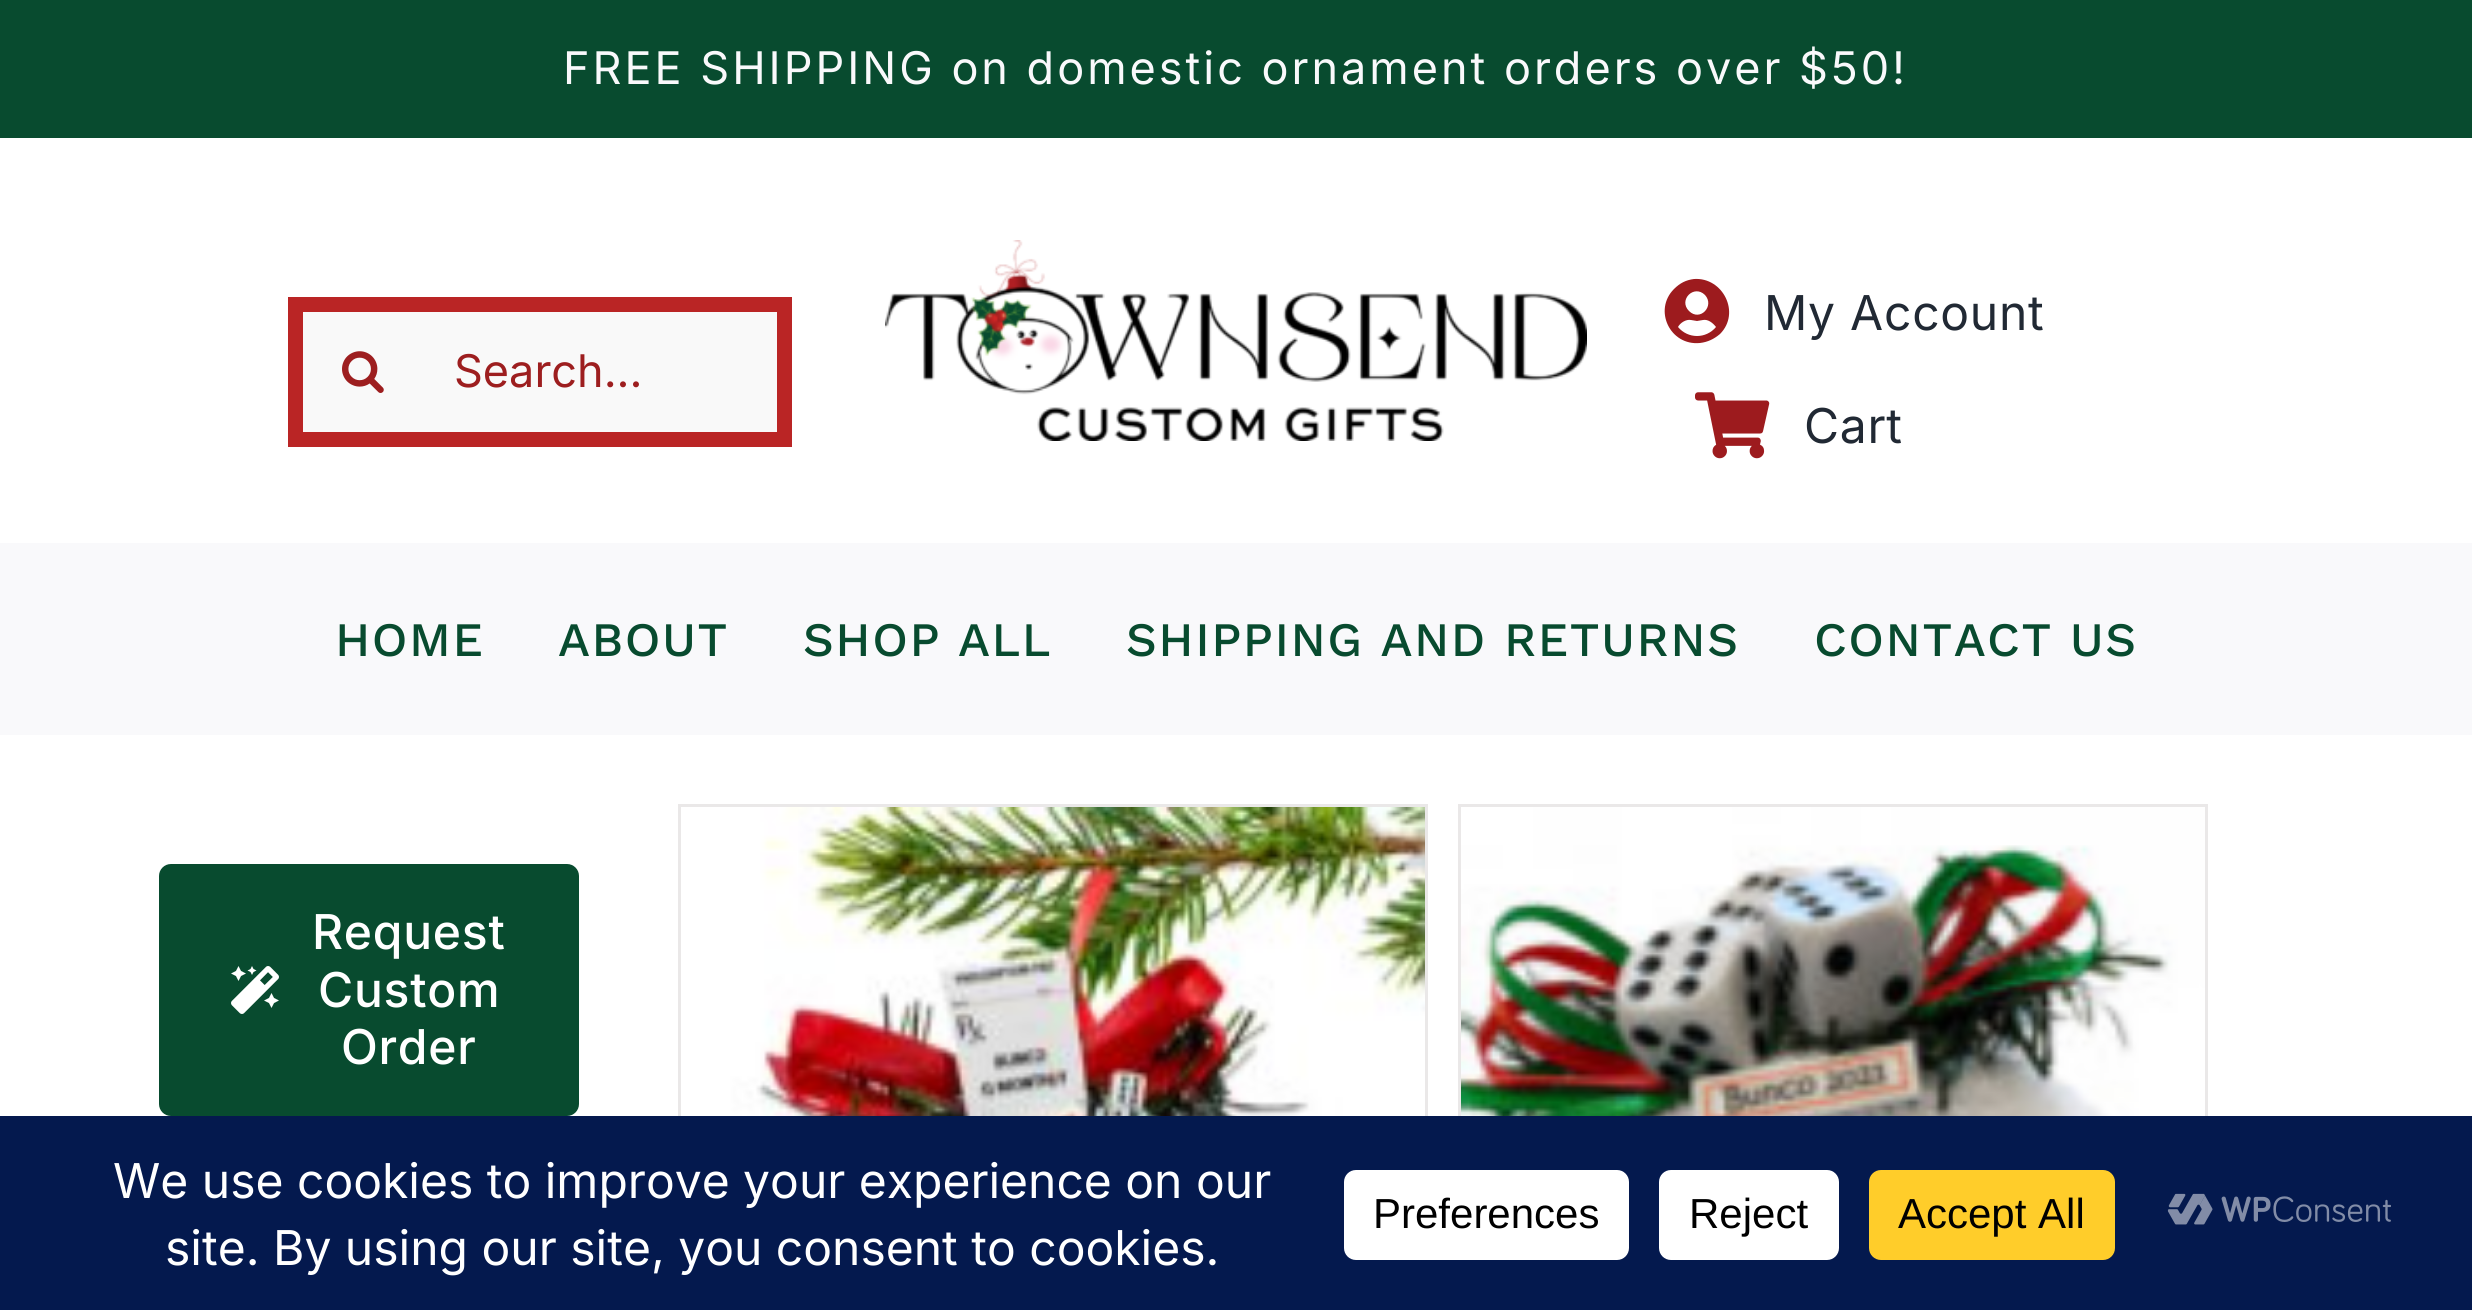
import math
import cairo

surface = cairo.ImageSurface(cairo.Format.RGB24, 2472, 1310)
ctx = cairo.Context(surface)
options = cairo.FontOptions()
options.set_hint_metrics(cairo.HintMetrics.OFF)
options.set_hint_style(cairo.HintStyle.NONE)
ctx.set_font_options(options)
ctx.set_miter_limit(4)


def ink(r, g, b):
    ctx.set_source_rgb(r / 255, g / 255, b / 255)


def write(x, y, s, family, size, color, bold=False, italic=False):
    ctx.select_font_face(family, cairo.FontSlant.ITALIC if italic else cairo.FontSlant.NORMAL, cairo.FontWeight.BOLD if bold else cairo.FontWeight.NORMAL)
    ctx.set_font_size(size)
    ink(*color)
    ctx.move_to(x, y)
    ctx.show_text(s)


def write_spaced(x, y, s, letter, word):
    ctx.move_to(x, y)
    for ch in s:
        ctx.show_text(ch)
        ctx.rel_move_to(letter + word * (ch == ' '), 0)


def block(x, y, w, h, *color):
    ink(*color)
    ctx.rectangle(x, y, w, h)
    ctx.fill()


def round_path(x, y, w, h, r):
    ctx.new_sub_path()
    for i, (u, v) in enumerate([(x + w - r, y + h - r), (x + r, y + h - r), (x + r, y + r), (x + w - r, y + r)]):
        ctx.arc(u, v, r, i * math.pi / 2, (i + 1) * math.pi / 2)
    ctx.close_path()


def paste(path, x, y, w, h):
    ctx.save()
    ctx.set_source_surface(cairo.ImageSurface.create_from_png(path), x, y)
    ctx.rectangle(x, y, w, h)
    ctx.fill()
    ctx.restore()


s1 = dict(family="Inter", size=45, color=(157, 30, 31))
s2 = dict(family="Inter", size=48, color=(255, 255, 255))
s3 = dict(family="Liberation Sans", size=42, color=(0, 0, 0))

ink(255, 255, 255)
ctx.paint()
block(0, 0, 2472, 138, 8, 75, 47)
ctx.select_font_face("Inter")
ctx.set_font_size(45)
ink(249, 249, 251)
write_spaced(563, 84, "FREE SHIPPING on domestic ornament orders over $50!", 3, 0)
ink(249, 249, 249)
ctx.rectangle(295.5, 304.5, 489, 135)
ctx.fill_preserve()
ink(186, 37, 37)
ctx.set_line_width(15)
ctx.stroke()
paste("pic1.png", 342, 351, 42, 42)
write(454, 387, "Search...", **s1)
paste("pic2.png", 885, 240, 702, 201)
ink(157, 27, 30)
ctx.new_path()
ctx.move_to(1674, 289)
ctx.curve_to(1680, 283, 1686, 280, 1694, 279)
ctx.curve_to(1723, 277, 1741, 313, 1720, 334)
ctx.curve_to(1714, 339, 1708, 342, 1700, 343)
ctx.curve_to(1670, 346, 1653, 310, 1674, 289)
ctx.close_path()
ctx.move_to(1705, 295)
ctx.curve_to(1694, 284, 1678, 300, 1689, 311)
ctx.curve_to(1700, 322, 1715, 306, 1705, 295)
ctx.close_path()
ctx.move_to(1678, 327)
ctx.curve_to(1688, 339, 1706, 339, 1716, 327)
ctx.curve_to(1713, 323, 1708, 319, 1703, 320)
ctx.line_to(1697, 321)
ctx.line_to(1691, 320)
ctx.curve_to(1686, 319, 1680, 323, 1678, 327)
ctx.close_path()
ctx.fill()
ctx.set_font_size(48)
ink(33, 41, 52)
write_spaced(1764, 330, "My Account", 0.75, 0)
paste("pic3.png", 1695, 392, 75, 67)
write_spaced(1804, 443, "Cart", 0.75, 0)
block(0, 543, 2472, 192, 249, 249, 251)
ctx.select_font_face("Work Sans Medium")
ink(8, 75, 47)
write_spaced(335, 656, "HOME", 1.5, 0)
write_spaced(558, 656, "ABOUT", 1.5, 0)
write_spaced(803, 656, "SHOP ALL", 1.5, 0)
write_spaced(1126, 656, "SHIPPING AND RETURNS", 1.5, 0)
write_spaced(1814, 656, "CONTACT US", 1.5, 0)
round_path(159, 864, 420, 252, 12)
ctx.fill()
paste("pic4.png", 231, 966, 48, 48)
ctx.select_font_face("Inter Medium")
ink(255, 255, 255)
write_spaced(312, 949, "Request", 0.75, 0)
write_spaced(318, 1007, "Custom", 0.75, 0)
write_spaced(341, 1064, "Order", 0.75, 0)
ctx.rectangle(679.5, 805.5, 747, 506)
ink(234, 232, 232)
ctx.set_line_width(3)
ctx.stroke()
paste("pic5.png", 681, 807, 744, 309)
ctx.rectangle(1459.5, 805.5, 747, 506)
ctx.stroke()
paste("pic6.png", 1461, 807, 744, 309)
block(0, 1116, 2472, 194, 4, 25, 78)
write(113, 1198, "We use cookies to improve your experience on our", **s2)
write(165, 1265, "site. By using our site, you consent to cookies.", **s2)
round_path(1344, 1170, 285, 90, 12)
ctx.fill()
write(1373, 1228, "Preferences", **s3)
ink(255, 255, 255)
round_path(1659, 1170, 180, 90, 12)
ctx.fill()
write(1689, 1228, "Reject", **s3)
ink(255, 205, 42)
round_path(1869, 1170, 246, 90, 12)
ctx.fill()
write(1898, 1228, "Accept All", **s3)
paste("pic7.png", 2167, 1193, 224, 32)
surface.write_to_png("screenshot.png")
